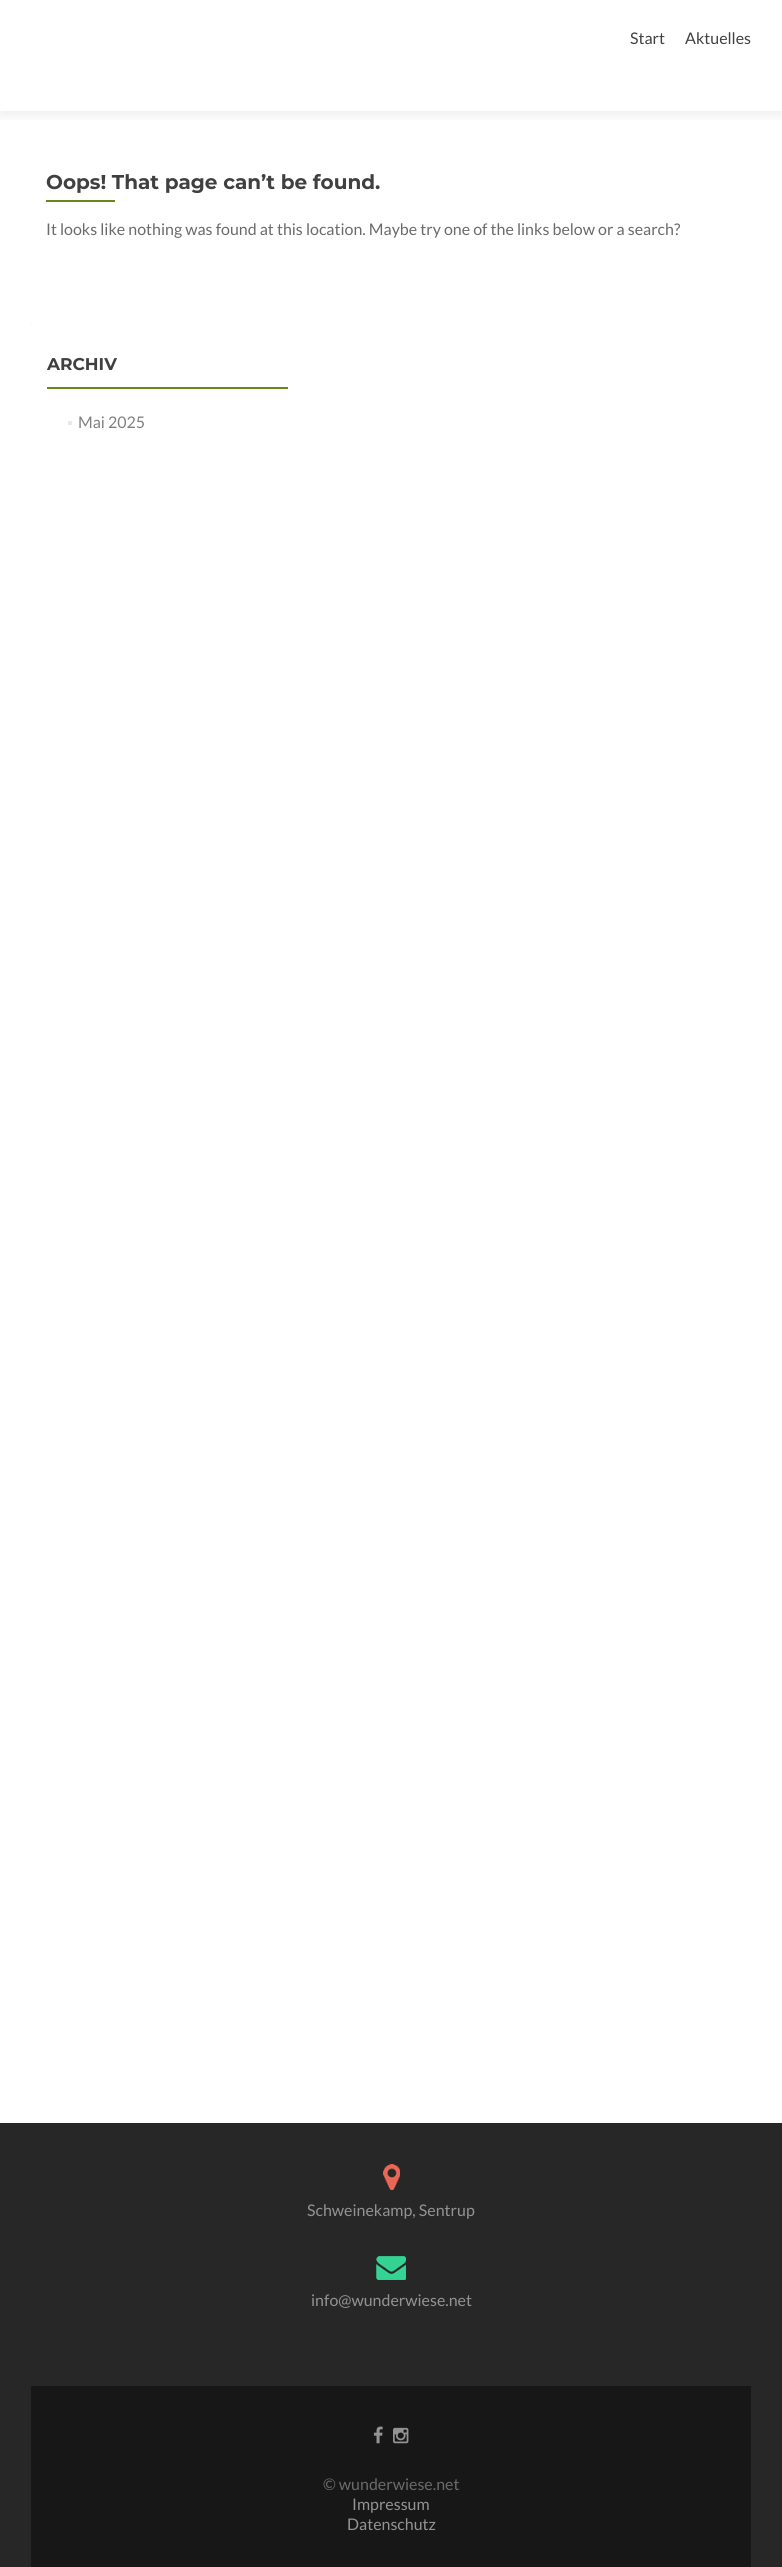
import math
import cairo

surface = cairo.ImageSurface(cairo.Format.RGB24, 782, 2567)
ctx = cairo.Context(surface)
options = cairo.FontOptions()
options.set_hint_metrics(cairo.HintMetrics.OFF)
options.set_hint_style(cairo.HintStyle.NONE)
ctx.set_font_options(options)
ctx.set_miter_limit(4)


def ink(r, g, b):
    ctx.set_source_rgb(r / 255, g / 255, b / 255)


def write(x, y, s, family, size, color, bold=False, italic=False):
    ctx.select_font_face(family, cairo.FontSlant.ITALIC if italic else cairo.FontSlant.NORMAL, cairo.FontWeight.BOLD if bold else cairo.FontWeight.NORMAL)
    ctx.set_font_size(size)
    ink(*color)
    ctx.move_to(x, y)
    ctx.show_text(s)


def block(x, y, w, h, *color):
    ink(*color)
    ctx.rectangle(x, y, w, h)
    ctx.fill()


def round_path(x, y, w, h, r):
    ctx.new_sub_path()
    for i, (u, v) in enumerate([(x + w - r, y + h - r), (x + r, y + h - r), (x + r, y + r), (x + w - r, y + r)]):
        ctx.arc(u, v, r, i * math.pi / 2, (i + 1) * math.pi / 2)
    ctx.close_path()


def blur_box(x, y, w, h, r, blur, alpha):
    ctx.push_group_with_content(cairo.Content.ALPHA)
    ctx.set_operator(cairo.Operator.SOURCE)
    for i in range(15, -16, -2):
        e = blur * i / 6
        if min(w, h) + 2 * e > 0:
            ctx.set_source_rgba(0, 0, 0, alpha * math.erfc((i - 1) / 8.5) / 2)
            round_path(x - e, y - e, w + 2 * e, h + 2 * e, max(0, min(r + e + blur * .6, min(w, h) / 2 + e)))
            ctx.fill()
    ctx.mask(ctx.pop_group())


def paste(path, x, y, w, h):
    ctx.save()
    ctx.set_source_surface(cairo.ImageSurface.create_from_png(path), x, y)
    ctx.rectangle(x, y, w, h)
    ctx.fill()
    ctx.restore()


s1 = dict(family="Lato", size=16, color=(64, 64, 64))
s2 = dict(family="Montserrat Thin", size=20, color=(64, 64, 64))
s3 = dict(family="Lato", size=16, color=(106, 106, 106))
s4 = dict(family="Montserrat Thin", size=17, color=(64, 64, 64))
s5 = dict(family="Lato", size=16, color=(128, 128, 128))
s6 = dict(family="Lato", size=16, color=(147, 147, 147))

ink(255, 255, 255)
ctx.paint()
ctx.save()
ctx.rectangle(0, 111, 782, 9)
ctx.clip()
ink(50, 50, 50)
blur_box(0, 5, 782, 111, 0, 5.5, 0.08)
ctx.restore()
write(630, 44, "Start", **s1)
write(685, 44, "Aktuelles", **s1)
write(46, 189, "Oops! That page can’t be found.", **s2)
block(46, 200, 69, 2, 103, 136, 22)
write(46, 235, "It looks like nothing was found at this location. Maybe try one of the links below or a search?", **s3)
block(31, 323, 1, 1, 242, 242, 242)
write(47, 370, "ARCHIV", **s4)
block(47, 387, 241, 2, 103, 136, 22)
block(68, 421, 4, 4, 233, 233, 233)
write(78, 428, "Mai 2025", **s5)
block(0, 2123, 782, 444, 39, 39, 39)
paste("pic1.png", 383, 2164, 17, 26)
write(307, 2216, "Schweinekamp, Sentrup", **s6)
paste("pic2.png", 376, 2256, 30, 24)
write(311, 2306, "info@wunderwiese.net", **s6)
block(31, 2386, 720, 181, 23, 23, 23)
paste("pic3.png", 373, 2426, 10, 18)
paste("pic4.png", 393, 2427, 16, 17)
write(323, 2490, "© wunderwiese.net", **s3)
write(352, 2510, "Impressum", **s6)
write(347, 2530, "Datenschutz", **s6)
surface.write_to_png("screenshot.png")
